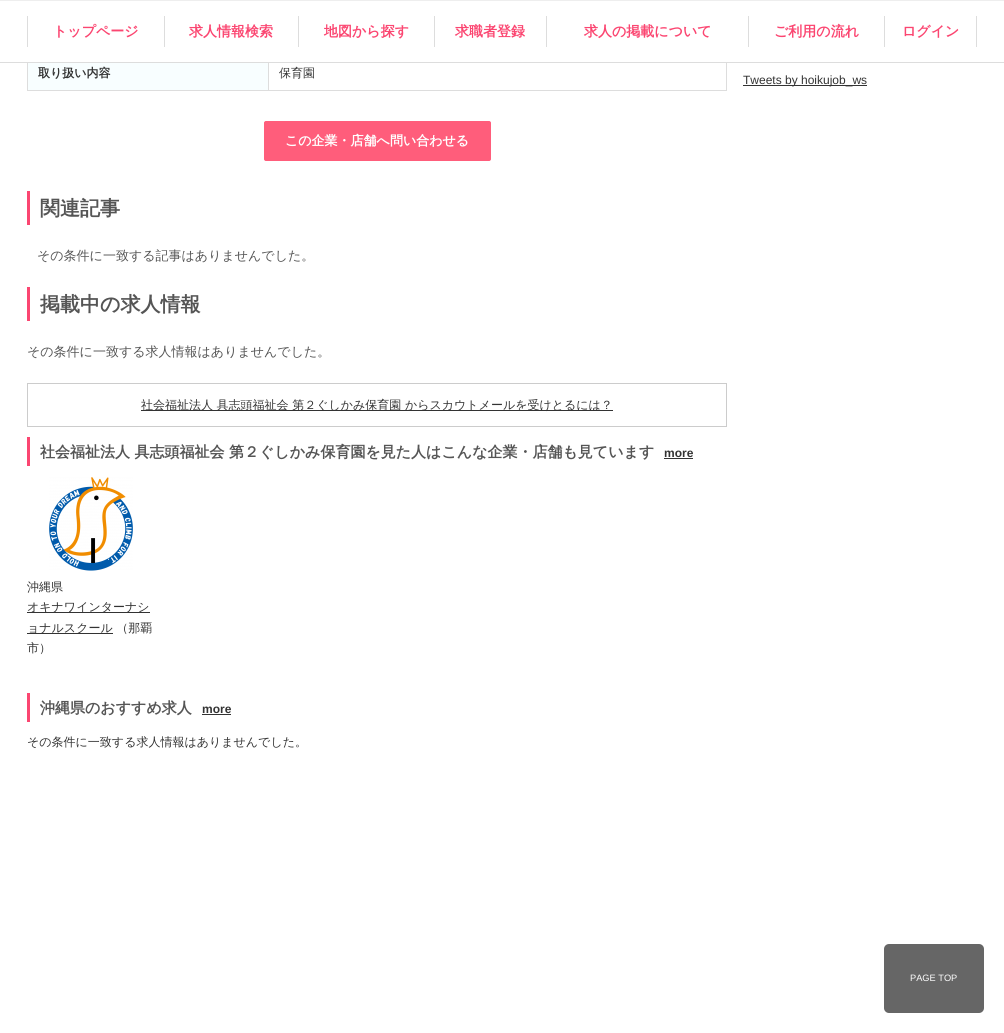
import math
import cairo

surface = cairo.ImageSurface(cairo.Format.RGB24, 1004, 1033)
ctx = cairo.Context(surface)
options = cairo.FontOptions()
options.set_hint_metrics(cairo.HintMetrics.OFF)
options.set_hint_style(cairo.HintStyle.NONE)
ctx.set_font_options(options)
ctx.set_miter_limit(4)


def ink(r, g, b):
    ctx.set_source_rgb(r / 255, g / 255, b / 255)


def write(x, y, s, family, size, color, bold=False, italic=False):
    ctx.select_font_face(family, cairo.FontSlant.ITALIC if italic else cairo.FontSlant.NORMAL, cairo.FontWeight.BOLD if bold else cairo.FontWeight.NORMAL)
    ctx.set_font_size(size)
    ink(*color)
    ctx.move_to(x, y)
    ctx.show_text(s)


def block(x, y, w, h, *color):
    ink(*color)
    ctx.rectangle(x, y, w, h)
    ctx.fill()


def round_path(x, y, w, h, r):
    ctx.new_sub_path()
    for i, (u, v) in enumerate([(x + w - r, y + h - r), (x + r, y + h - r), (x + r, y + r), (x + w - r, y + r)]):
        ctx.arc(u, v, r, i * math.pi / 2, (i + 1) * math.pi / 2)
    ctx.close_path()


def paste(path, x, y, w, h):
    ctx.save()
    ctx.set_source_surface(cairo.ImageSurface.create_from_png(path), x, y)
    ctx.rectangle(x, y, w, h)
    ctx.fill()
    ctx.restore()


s1 = dict(family="WenQuanYi Zen Hei", size=14, color=(251, 70, 113), bold=True)
s2 = dict(family="WenQuanYi Zen Hei", size=12, color=(51, 51, 51), bold=True)
s3 = dict(family="WenQuanYi Zen Hei Medium", size=12, color=(51, 51, 51))
s4 = dict(family="WenQuanYi Zen Hei", size=13, color=(255, 255, 255), bold=True)
s5 = dict(family="WenQuanYi Zen Hei", size=20, color=(85, 85, 85), bold=True)
s6 = dict(family="WenQuanYi Zen Hei Medium", size=13, color=(85, 85, 85))
s7 = dict(family="WenQuanYi Zen Hei", size=15, color=(85, 85, 85), bold=True)
s8 = dict(family="Liberation Sans", size=12, color=(51, 51, 51), bold=True)
s9 = dict(family="Liberation Sans", size=12, color=(51, 51, 51))
s10 = dict(family="Liberation Sans", size=9.25, color=(255, 255, 255))

ink(255, 255, 255)
ctx.paint()
block(726, 55, 1, 36, 221, 221, 221)
block(268, 90, 459, 1, 221, 221, 221)
block(268, 55, 1, 36, 221, 221, 221)
block(27, 90, 242, 1, 221, 221, 221)
block(27, 55, 1, 36, 221, 221, 221)
block(27, 55, 700, 7, 255, 255, 255)
block(0, 0, 1004, 1, 238, 238, 238)
block(0, 62, 1004, 1, 221, 221, 221)
block(27, 16, 1, 31, 221, 221, 221)
block(164, 16, 1, 31, 221, 221, 221)
write(53, 36, "トップページ", **s1)
block(298, 16, 1, 31, 221, 221, 221)
write(189, 36, "求人情報検索", **s1)
block(434, 16, 1, 31, 221, 221, 221)
write(324, 36, "地図から探す", **s1)
block(546, 16, 1, 31, 221, 221, 221)
write(455, 36, "求職者登録", **s1)
block(748, 16, 1, 31, 221, 221, 221)
write(584, 36, "求人の掲載について", **s1)
block(884, 16, 1, 31, 221, 221, 221)
write(774, 36, "ご利用の流れ", **s1)
block(976, 16, 1, 31, 221, 221, 221)
write(902, 36, "ログイン", **s1)
block(28, 63, 240, 27, 248, 254, 255)
write(38, 77, "取り扱い内容", **s2)
write(279, 77, "保育園", **s3)
ink(255, 93, 123)
round_path(264.5, 121.5, 226, 39, 1.5)
ctx.fill_preserve()
ctx.set_line_width(1)
ctx.stroke()
write(285, 145, "この企業・店舗へ問い合わせる", **s4)
block(27, 191, 3, 34, 251, 70, 113)
write(40, 215, "関連記事", **s5)
write(37, 260, "その条件に一致する記事はありませんでした。", **s6)
block(27, 287, 3, 34, 251, 70, 113)
write(40, 311, "掲載中の求人情報", **s5)
write(27, 356, "その条件に一致する求人情報はありませんでした。", **s6)
ctx.rectangle(27.5, 383.5, 699, 43)
ink(204, 204, 204)
ctx.stroke()
block(141, 410, 472, 1, 51, 51, 51)
write(141, 409, "社会福祉法人 具志頭福祉会 第２ぐしかみ保育園 からスカウトメールを受けとるには？", **s3)
block(27, 437, 3, 29, 251, 70, 113)
write(40, 457, "社会福祉法人 具志頭福祉会 第２ぐしかみ保育園を見た人はこんな企業・店舗も見ています", **s7)
write(664, 457, "more", **s8)
block(664, 458, 29, 1, 51, 51, 51)
paste("pic1.png", 49, 477, 84, 94)
write(27, 591, "沖縄県", **s3)
block(27, 612, 123, 1, 51, 51, 51)
write(27, 611, "オキナワインターナシ", **s3)
block(27, 633, 86, 1, 51, 51, 51)
write(27, 632, "ョナルスクール （那覇", **s3)
write(27, 652, "市）", **s3)
block(27, 693, 3, 29, 251, 70, 113)
write(40, 713, "沖縄県のおすすめ求人", **s7)
write(202, 713, "more", **s8)
block(202, 714, 29, 1, 51, 51, 51)
write(27, 746, "その条件に一致する求人情報はありませんでした。", **s3)
block(743, 85, 124, 1, 51, 51, 51)
write(743, 84, "Tweets by hoikujob_ws", **s9)
ink(102, 102, 102)
round_path(884, 944, 100, 69, 5)
ctx.fill()
write(910, 981, "PAGE TOP", **s10)
surface.write_to_png("screenshot.png")
